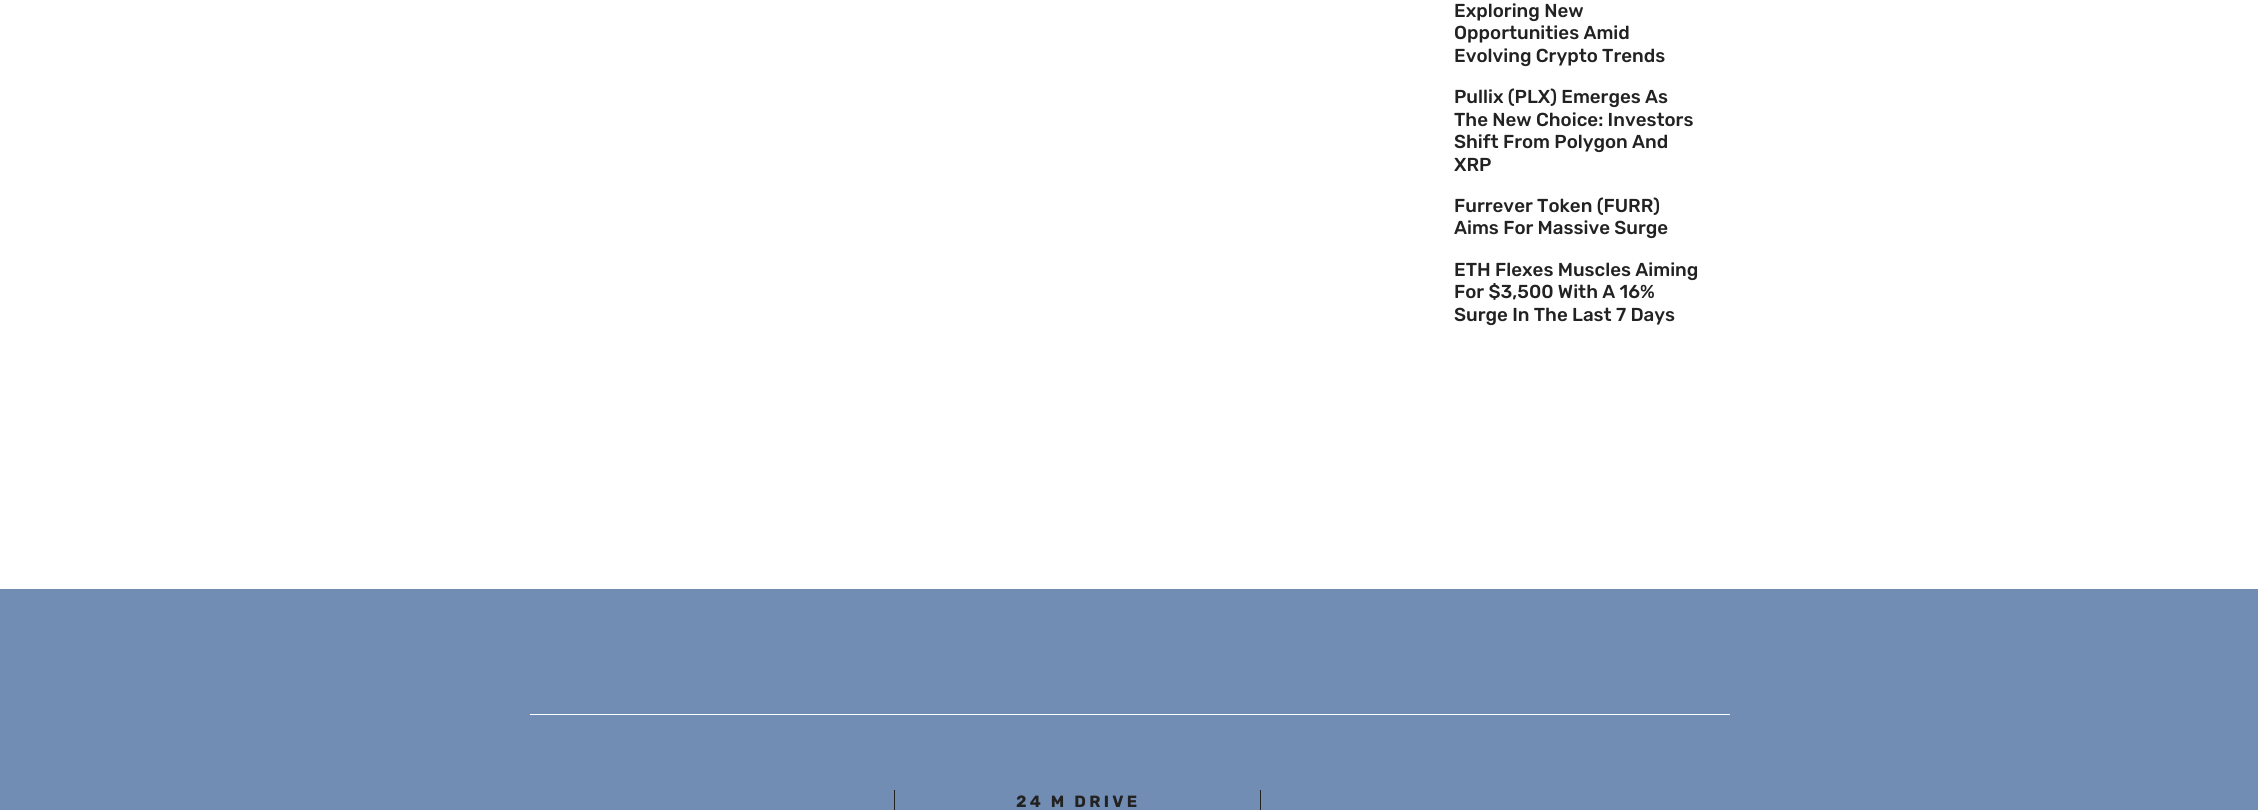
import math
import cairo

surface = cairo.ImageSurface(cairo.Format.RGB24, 2258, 810)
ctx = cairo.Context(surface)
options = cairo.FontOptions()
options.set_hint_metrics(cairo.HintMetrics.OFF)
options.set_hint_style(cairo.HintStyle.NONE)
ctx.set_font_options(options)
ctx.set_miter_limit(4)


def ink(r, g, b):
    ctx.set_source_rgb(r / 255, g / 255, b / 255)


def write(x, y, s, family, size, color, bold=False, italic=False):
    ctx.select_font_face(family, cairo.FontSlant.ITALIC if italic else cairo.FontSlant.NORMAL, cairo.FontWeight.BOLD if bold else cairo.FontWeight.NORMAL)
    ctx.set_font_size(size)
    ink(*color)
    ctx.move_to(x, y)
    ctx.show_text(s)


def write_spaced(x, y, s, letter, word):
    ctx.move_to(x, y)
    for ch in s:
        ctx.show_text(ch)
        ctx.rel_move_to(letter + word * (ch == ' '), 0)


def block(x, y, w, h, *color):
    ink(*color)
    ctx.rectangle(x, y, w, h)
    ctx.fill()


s1 = dict(family="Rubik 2 Light", size=18.75, color=(34, 34, 34))

ink(255, 255, 255)
ctx.paint()
write(1454, 17, "Exploring New", **s1)
write(1454, 39, "Opportunities Amid", **s1)
write(1454, 62, "Evolving Crypto Trends", **s1)
write(1454, 103, "Pullix (PLX) Emerges As", **s1)
write(1454, 126, "The New Choice: Investors", **s1)
write(1454, 148, "Shift From Polygon And", **s1)
write(1454, 171, "XRP", **s1)
write(1454, 212, "Furrever Token (FURR)", **s1)
write(1454, 234, "Aims For Massive Surge", **s1)
write(1454, 276, "ETH Flexes Muscles Aiming", **s1)
write(1454, 298, "For $3,500 With A 16%", **s1)
write(1454, 321, "Surge In The Last 7 Days", **s1)
block(0, 589, 2258, 221, 114, 141, 179)
block(530, 714, 1200, 1, 255, 255, 255)
block(1260, 790, 1, 20, 34, 34, 34)
block(894, 790, 1, 20, 34, 34, 34)
ctx.select_font_face("Rubik Light")
ctx.set_font_size(16.25)
write_spaced(1016, 807, "24 M DRIVE", 3.25, 0)
surface.write_to_png("screenshot.png")
